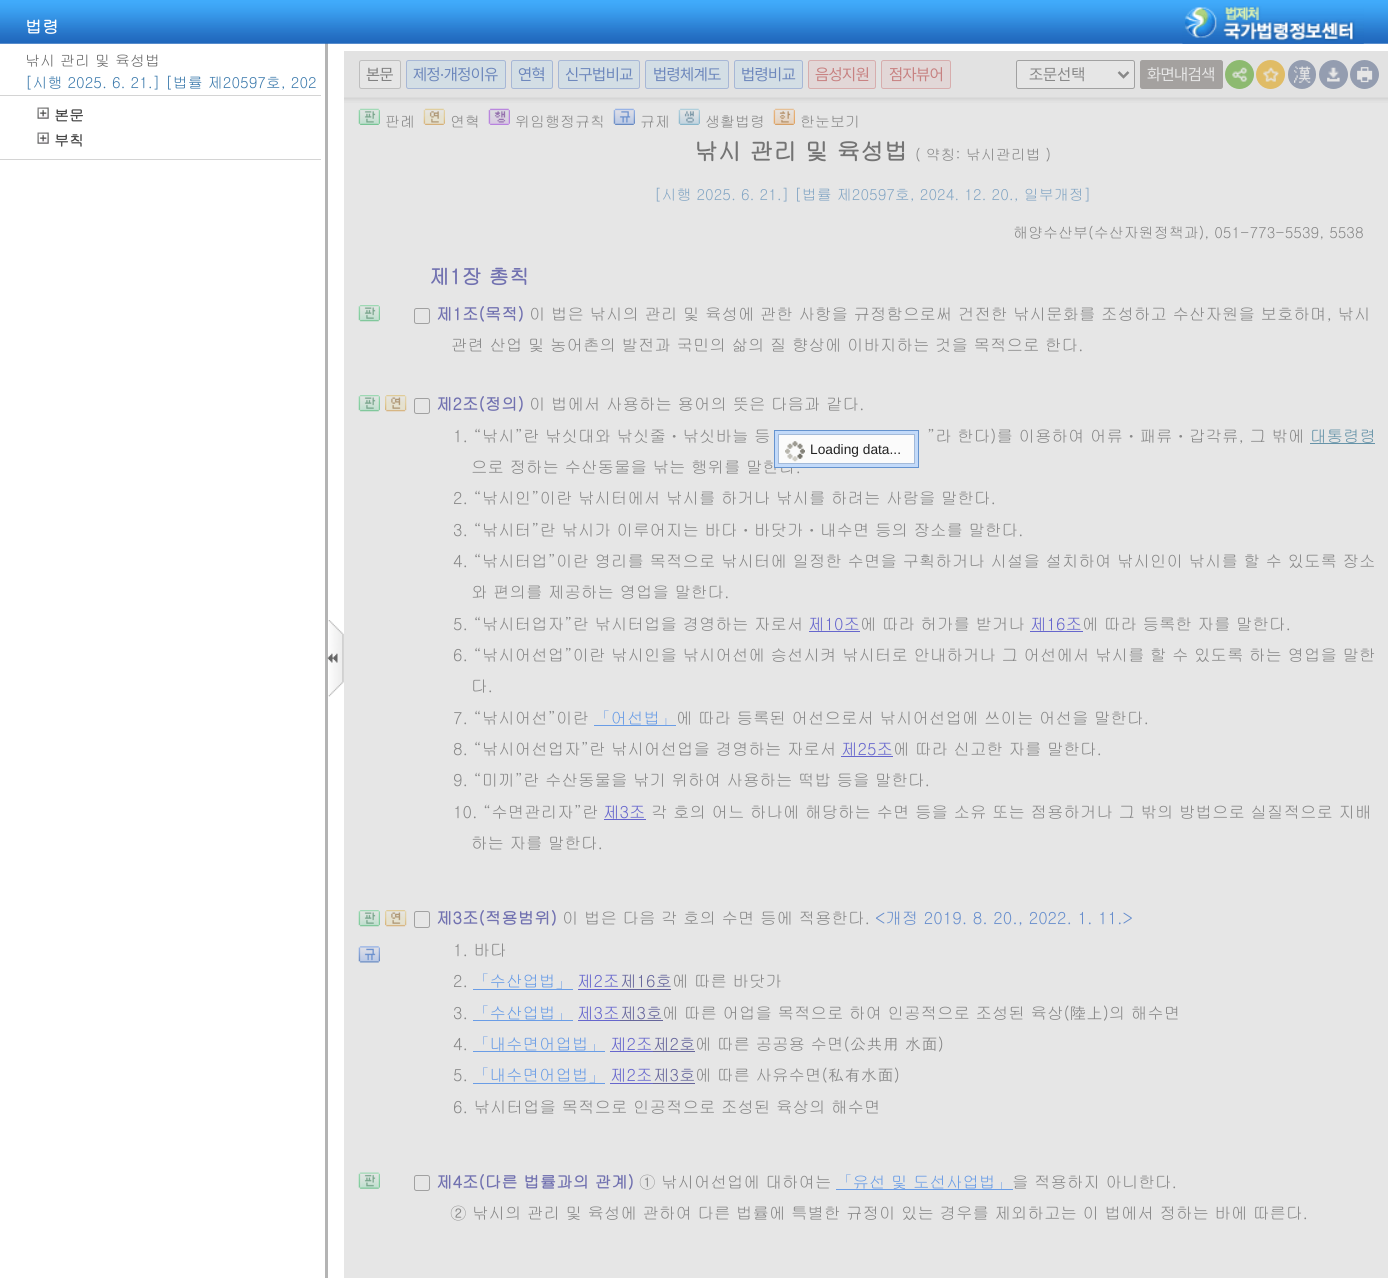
import math
import cairo

surface = cairo.ImageSurface(cairo.Format.RGB24, 1388, 1278)
ctx = cairo.Context(surface)
options = cairo.FontOptions()
options.set_hint_metrics(cairo.HintMetrics.OFF)
options.set_hint_style(cairo.HintStyle.NONE)
ctx.set_font_options(options)
ctx.set_miter_limit(4)


def ink(r, g, b):
    ctx.set_source_rgb(r / 255, g / 255, b / 255)


def write(x, y, s, family, size, color, bold=False, italic=False):
    ctx.select_font_face(family, cairo.FontSlant.ITALIC if italic else cairo.FontSlant.NORMAL, cairo.FontWeight.BOLD if bold else cairo.FontWeight.NORMAL)
    ctx.set_font_size(size)
    ink(*color)
    ctx.move_to(x, y)
    ctx.show_text(s)


def write_spaced(x, y, s, letter, word):
    ctx.move_to(x, y)
    for ch in s:
        ctx.show_text(ch)
        ctx.rel_move_to(letter + word * (ch == ' '), 0)


def block(x, y, w, h, *color):
    ink(*color)
    ctx.rectangle(x, y, w, h)
    ctx.fill()


def round_path(x, y, w, h, r):
    ctx.new_sub_path()
    for i, (u, v) in enumerate([(x + w - r, y + h - r), (x + r, y + h - r), (x + r, y + r), (x + w - r, y + r)]):
        ctx.arc(u, v, r, i * math.pi / 2, (i + 1) * math.pi / 2)
    ctx.close_path()


def paste(path, x, y, w, h):
    ctx.save()
    ctx.set_source_surface(cairo.ImageSurface.create_from_png(path), x, y)
    ctx.rectangle(x, y, w, h)
    ctx.fill()
    ctx.restore()


s1 = dict(family="Gulim", size=17, color=(255, 255, 255), bold=True)
s2 = dict(family="Gulim", size=15, color=(102, 102, 102))
s3 = dict(family="Gulim", size=15, color=(60, 122, 172))
s4 = dict(family="Gulim", size=15, color=(68, 68, 68), bold=True)
s5 = dict(family="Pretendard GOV", size=16.25, color=(136, 136, 136))
s6 = dict(family="Gulim", size=15, color=(136, 136, 136))
s7 = dict(family="Gulim", size=23.75, color=(116, 116, 116), bold=True)
s8 = dict(family="Gulim", size=15, color=(132, 166, 196))
s9 = dict(family="Gulim", size=20.5, color=(113, 113, 176), bold=True)
s10 = dict(family="Gulim", size=16.5, color=(113, 113, 176), bold=True)
s11 = dict(family="Gulim", size=16.5, color=(136, 136, 136))
s12 = dict(family="Gulim", size=16.5, color=(102, 147, 168))
s13 = dict(family="Gulim", size=16.5, color=(102, 102, 205))
s14 = dict(family="Gulim", size=16.5, color=(106, 157, 230))
s15 = dict(family="Gulim", size=16.5, color=(103, 142, 205))
s16 = dict(family="Gulim", size=16.5, color=(102, 102, 155))
s17 = dict(family="Liberation Sans", size=13.75, color=(34, 34, 34))

ink(255, 255, 255)
ctx.paint()
block(344, 103, 1044, 1175, 230, 230, 230)
block(325, 43, 3, 1235, 180, 180, 180)
paste("pic1.png", 0, 0, 1388, 44)
write(25, 33, "법령", **s1)
paste("pic2.png", 1182, 6, 182, 38)
block(0, 159, 321, 1, 212, 212, 212)
write(25, 66, "낚시 관리 및 육성법", **s2)
write(25, 88, "[시행 2025. 6. 21.] [법률 제20597호, 202", **s3)
block(0, 95, 321, 1, 212, 212, 212)
paste("pic3.png", 37, 107, 12, 12)
write(54, 121, "본문", **s4)
paste("pic3.png", 37, 132, 12, 12)
write(54, 146, "부칙", **s4)
block(344, 51, 1044, 52, 226, 226, 226)
paste("pic4.png", 344, 97, 1044, 4)
ink(230, 230, 230)
round_path(359.5, 60.5, 41, 28, 2)
ctx.fill_preserve()
ink(190, 190, 190)
ctx.set_line_width(1)
ctx.stroke()
ctx.select_font_face("Pretendard GOV")
ctx.set_font_size(16.25)
ink(128, 128, 128)
write_spaced(366, 80, "본문", -0.5, 0)
ink(211, 222, 229)
round_path(406.5, 60.5, 99, 28, 2)
ctx.fill_preserve()
ink(167, 183, 214)
ctx.stroke()
ink(109, 135, 188)
write_spaced(413, 80, "제정·개정이유", -0.5, 0)
ink(211, 222, 229)
round_path(511.5, 60.5, 41, 28, 2)
ctx.fill_preserve()
ink(167, 183, 214)
ctx.stroke()
ink(109, 135, 188)
write_spaced(518, 80, "연혁", -0.5, 0)
ink(211, 222, 229)
round_path(558.5, 60.5, 81, 28, 2)
ctx.fill_preserve()
ink(167, 183, 214)
ctx.stroke()
ink(109, 135, 188)
write_spaced(565, 80, "신구법비교", -0.5, 0)
ink(211, 222, 229)
round_path(645.5, 60.5, 83, 28, 2)
ctx.fill_preserve()
ink(167, 183, 214)
ctx.stroke()
ink(109, 135, 188)
write_spaced(653, 80, "법령체계도", -0.5, 0)
ink(211, 222, 229)
round_path(734.5, 60.5, 68, 28, 2)
ctx.fill_preserve()
ink(167, 183, 214)
ctx.stroke()
ink(109, 135, 188)
write_spaced(741, 80, "법령비교", -0.5, 0)
ink(226, 215, 215)
round_path(808.5, 60.5, 67, 28, 2)
ctx.fill_preserve()
ink(215, 173, 173)
ctx.stroke()
ink(199, 129, 129)
write_spaced(815, 80, "음성지원", -0.5, 0)
ink(226, 215, 215)
round_path(881.5, 60.5, 69, 28, 2)
ctx.fill_preserve()
ink(215, 173, 173)
ctx.stroke()
ink(199, 129, 129)
write_spaced(889, 80, "점자뷰어", -0.5, 0)
ink(230, 230, 230)
round_path(1016.5, 60.5, 118, 28, 2)
ctx.fill_preserve()
ink(161, 161, 161)
ctx.stroke()
ctx.new_path()
ctx.move_to(1118.5, 72)
ctx.line_to(1123.5, 77)
ctx.line_to(1128.5, 72)
ink(136, 136, 136)
ctx.set_line_width(2.5)
ctx.stroke()
write(1029, 80, "조문선택", **s5)
ink(164, 161, 159)
round_path(1140.5, 60.5, 82, 28, 2)
ctx.fill_preserve()
ctx.set_line_width(1)
ctx.stroke()
ink(230, 230, 230)
write_spaced(1147, 80, "화면내검색", -0.5, 0)
ink(141, 186, 112)
ctx.new_path()
ctx.arc(1239.5, 74.5, 14.5, 0, 2 * math.pi)
ctx.fill()
paste("pic5.png", 1232, 67, 16, 15)
ink(224, 188, 102)
ctx.arc(1270.5, 74.5, 14.5, 0, 2 * math.pi)
ctx.fill()
paste("pic6.png", 1263, 67, 16, 15)
ink(148, 157, 176)
round_path(1288, 60, 28, 29, 14)
ctx.fill()
paste("pic7.png", 1294, 66, 17, 17)
ctx.arc(1333.5, 74.5, 14.5, 0, 2 * math.pi)
ctx.fill()
paste("pic8.png", 1327, 67, 13, 15)
ctx.arc(1364.5, 74.5, 14.5, 0, 2 * math.pi)
ctx.fill()
paste("pic9.png", 1357, 67, 16, 16)
paste("pic10.png", 358, 108, 22, 17)
write(385, 127, "판례", **s6)
paste("pic11.png", 423, 108, 22, 17)
write(450, 127, "연혁", **s6)
paste("pic12.png", 488, 108, 22, 17)
write(515, 127, "위임행정규칙", **s6)
paste("pic13.png", 613, 108, 22, 17)
write(640, 127, "규제", **s6)
paste("pic14.png", 678, 108, 22, 17)
write(705, 127, "생활법령", **s6)
paste("pic15.png", 773, 108, 22, 17)
write(800, 127, "한눈보기", **s6)
write(694, 160, "낚시 관리 및 육성법", **s7)
write(915, 160, "( 약칭: 낚시관리법 )", **s6)
write(654, 200, "[시행 2025. 6. 21.] [법률 제20597호, 2024. 12. 20., 일부개정]", **s8)
write(1013, 238, "해양수산부(수산자원정책과), 051-773-5539, 5538", **s6)
write(429, 284, "제1장 총칙", **s9)
paste("pic16.png", 358, 305, 22, 17)
round_path(414.5, 308.5, 15, 15, 2)
ink(161, 161, 161)
ctx.stroke()
write(436, 320, "제1조(목적)", **s10)
write(529, 320, "이 법은 낚시의 관리 및 육성에 관한 사항을 규정함으로써 건전한 낚시문화를 조성하고 수산자원을 보호하며, 낚시", **s11)
write(451, 351, "관련 산업 및 농어촌의 발전과 국민의 삶의 질 향상에 이바지하는 것을 목적으로 한다.", **s11)
paste("pic16.png", 358, 395, 22, 17)
paste("pic17.png", 385, 395, 22, 17)
round_path(414.5, 398.5, 15, 15, 2)
ink(161, 161, 161)
ctx.stroke()
write(436, 410, "제2조(정의)", **s10)
write(529, 410, "이 법에서 사용하는 용어의 뜻은 다음과 같다.", **s11)
write(453, 442, "1. “낚시”란 낚싯대와 낚싯줄ㆍ낚싯바늘 등", **s11)
write(927, 442, "”라 한다)를 이용하여 어류ㆍ패류ㆍ갑각류, 그 밖에", **s11)
write(1310, 442, "대통령령", **s12)
block(1310, 443, 65, 1, 102, 147, 168)
write(471, 473, "으로 정하는 수산동물을 낚는 행위를 말한다.", **s11)
write(453, 504, "2. “낚시인”이란 낚시터에서 낚시를 하거나 낚시를 하려는 사람을 말한다.", **s11)
write(453, 536, "3. “낚시터”란 낚시가 이루어지는 바다ㆍ바닷가ㆍ내수면 등의 장소를 말한다.", **s11)
write(453, 567, "4. “낚시터업”이란 영리를 목적으로 낚시터에 일정한 수면을 구획하거나 시설을 설치하여 낚시인이 낚시를 할 수 있도록 장소", **s11)
write(471, 598, "와 편의를 제공하는 영업을 말한다.", **s11)
write(453, 630, "5. “낚시터업자”란 낚시터업을 경영하는 자로서", **s11)
write(808, 630, "제10조", **s13)
block(809, 631, 51, 1, 102, 102, 205)
write(860, 630, "에 따라 허가를 받거나", **s11)
write(1030, 630, "제16조", **s13)
block(1030, 631, 53, 1, 102, 102, 205)
write(1082, 630, "에 따라 등록한 자를 말한다.", **s11)
write(453, 661, "6. “낚시어선업”이란 낚시인을 낚시어선에 승선시켜 낚시터로 안내하거나 그 어선에서 낚시를 할 수 있도록 하는 영업을 말한", **s11)
write(471, 692, "다.", **s11)
write(453, 724, "7. “낚시어선”이란", **s11)
block(594, 725, 82, 1, 106, 157, 230)
write(594, 724, "「어선법」", **s14)
write(676, 724, "에 따라 등록된 어선으로서 낚시어선업에 쓰이는 어선을 말한다.", **s11)
write(453, 755, "8. “낚시어선업자”란 낚시어선업을 경영하는 자로서", **s11)
write(841, 755, "제25조", **s13)
block(841, 756, 52, 1, 102, 102, 205)
write(893, 755, "에 따라 신고한 자를 말한다.", **s11)
write(453, 786, "9. “미끼”란 수산동물을 낚기 위하여 사용하는 떡밥 등을 말한다.", **s11)
write(453, 818, "10. “수면관리자”란", **s11)
write(603, 818, "제3조", **s13)
block(604, 819, 42, 1, 102, 102, 205)
write(651, 818, "각 호의 어느 하나에 해당하는 수면 등을 소유 또는 점용하거나 그 밖의 방법으로 실질적으로 지배", **s11)
write(471, 849, "하는 자를 말한다.", **s11)
paste("pic16.png", 358, 910, 22, 17)
paste("pic17.png", 385, 910, 22, 17)
paste("pic18.png", 358, 946, 22, 17)
round_path(414.5, 911.5, 15, 16, 2)
ink(161, 161, 161)
ctx.stroke()
write(436, 924, "제3조(적용범위)", **s10)
write(562, 924, "이 법은 다음 각 호의 수면 등에 적용한다.", **s11)
write(875, 924, "<개정 2019. 8. 20., 2022. 1. 11.>", **s15)
write(453, 956, "1. 바다", **s11)
write(453, 987, "2.", **s11)
write(473, 987, "「수산업법」", **s14)
block(473, 989, 100, 1, 106, 157, 230)
write(577, 987, "제2조", **s13)
block(578, 989, 42, 1, 102, 102, 205)
write(620, 987, "제16호", **s16)
block(620, 989, 51, 1, 102, 102, 155)
write(672, 987, "에 따른 바닷가", **s11)
write(453, 1019, "3.", **s11)
block(473, 1020, 100, 1, 106, 157, 230)
write(473, 1019, "「수산업법」", **s14)
write(577, 1019, "제3조", **s13)
block(578, 1020, 42, 1, 102, 102, 205)
write(620, 1019, "제3호", **s16)
block(620, 1020, 43, 1, 102, 102, 155)
write(662, 1019, "에 따른 어업을 목적으로 하여 인공적으로 조성된 육상(陸上)의 해수면", **s11)
write(453, 1050, "4.", **s11)
block(473, 1051, 132, 1, 106, 157, 230)
write(473, 1050, "「내수면어업법」", **s14)
write(610, 1050, "제2조", **s13)
block(610, 1051, 43, 1, 102, 102, 205)
write(653, 1050, "제2호", **s16)
block(653, 1051, 42, 1, 102, 102, 155)
write(695, 1050, "에 따른 공공용 수면(公共用 水面)", **s11)
write(453, 1081, "5.", **s11)
write(473, 1081, "「내수면어업법」", **s14)
block(473, 1083, 132, 1, 106, 157, 230)
write(610, 1081, "제2조", **s13)
block(610, 1083, 43, 1, 102, 102, 205)
write(653, 1081, "제3호", **s16)
block(653, 1083, 42, 1, 102, 102, 155)
write(695, 1081, "에 따른 사유수면(私有水面)", **s11)
write(453, 1113, "6. 낚시터업을 목적으로 인공적으로 조성된 육상의 해수면", **s11)
paste("pic19.png", 358, 1172, 22, 17)
round_path(414.5, 1175.5, 15, 15, 2)
ink(161, 161, 161)
ctx.stroke()
write(436, 1188, "제4조(다른 법률과의 관계)", **s10)
write(639, 1188, "① 낚시어선업에 대하여는", **s11)
block(836, 1189, 177, 1, 106, 157, 230)
write(836, 1188, "「유선 및 도선사업법」", **s14)
write(1012, 1188, "을 적용하지 아니한다.", **s11)
write(450, 1219, "② 낚시의 관리 및 육성에 관하여 다른 법률에 특별한 규정이 있는 경우를 제외하고는 이 법에서 정하는 바에 따른다.", **s11)
ink(195, 218, 249)
ctx.rectangle(774.5, 430.5, 144, 37)
ctx.fill_preserve()
ink(101, 147, 207)
ctx.stroke()
block(779, 435, 135, 28, 251, 251, 251)
paste("pic20.png", 785, 441, 20, 21)
ctx.rectangle(778.5, 434.5, 136, 29)
ink(163, 186, 217)
ctx.stroke()
write(810, 454, "Loading data...", **s17)
paste("pic21.png", 327, 620, 17, 77)
surface.write_to_png("screenshot.png")
